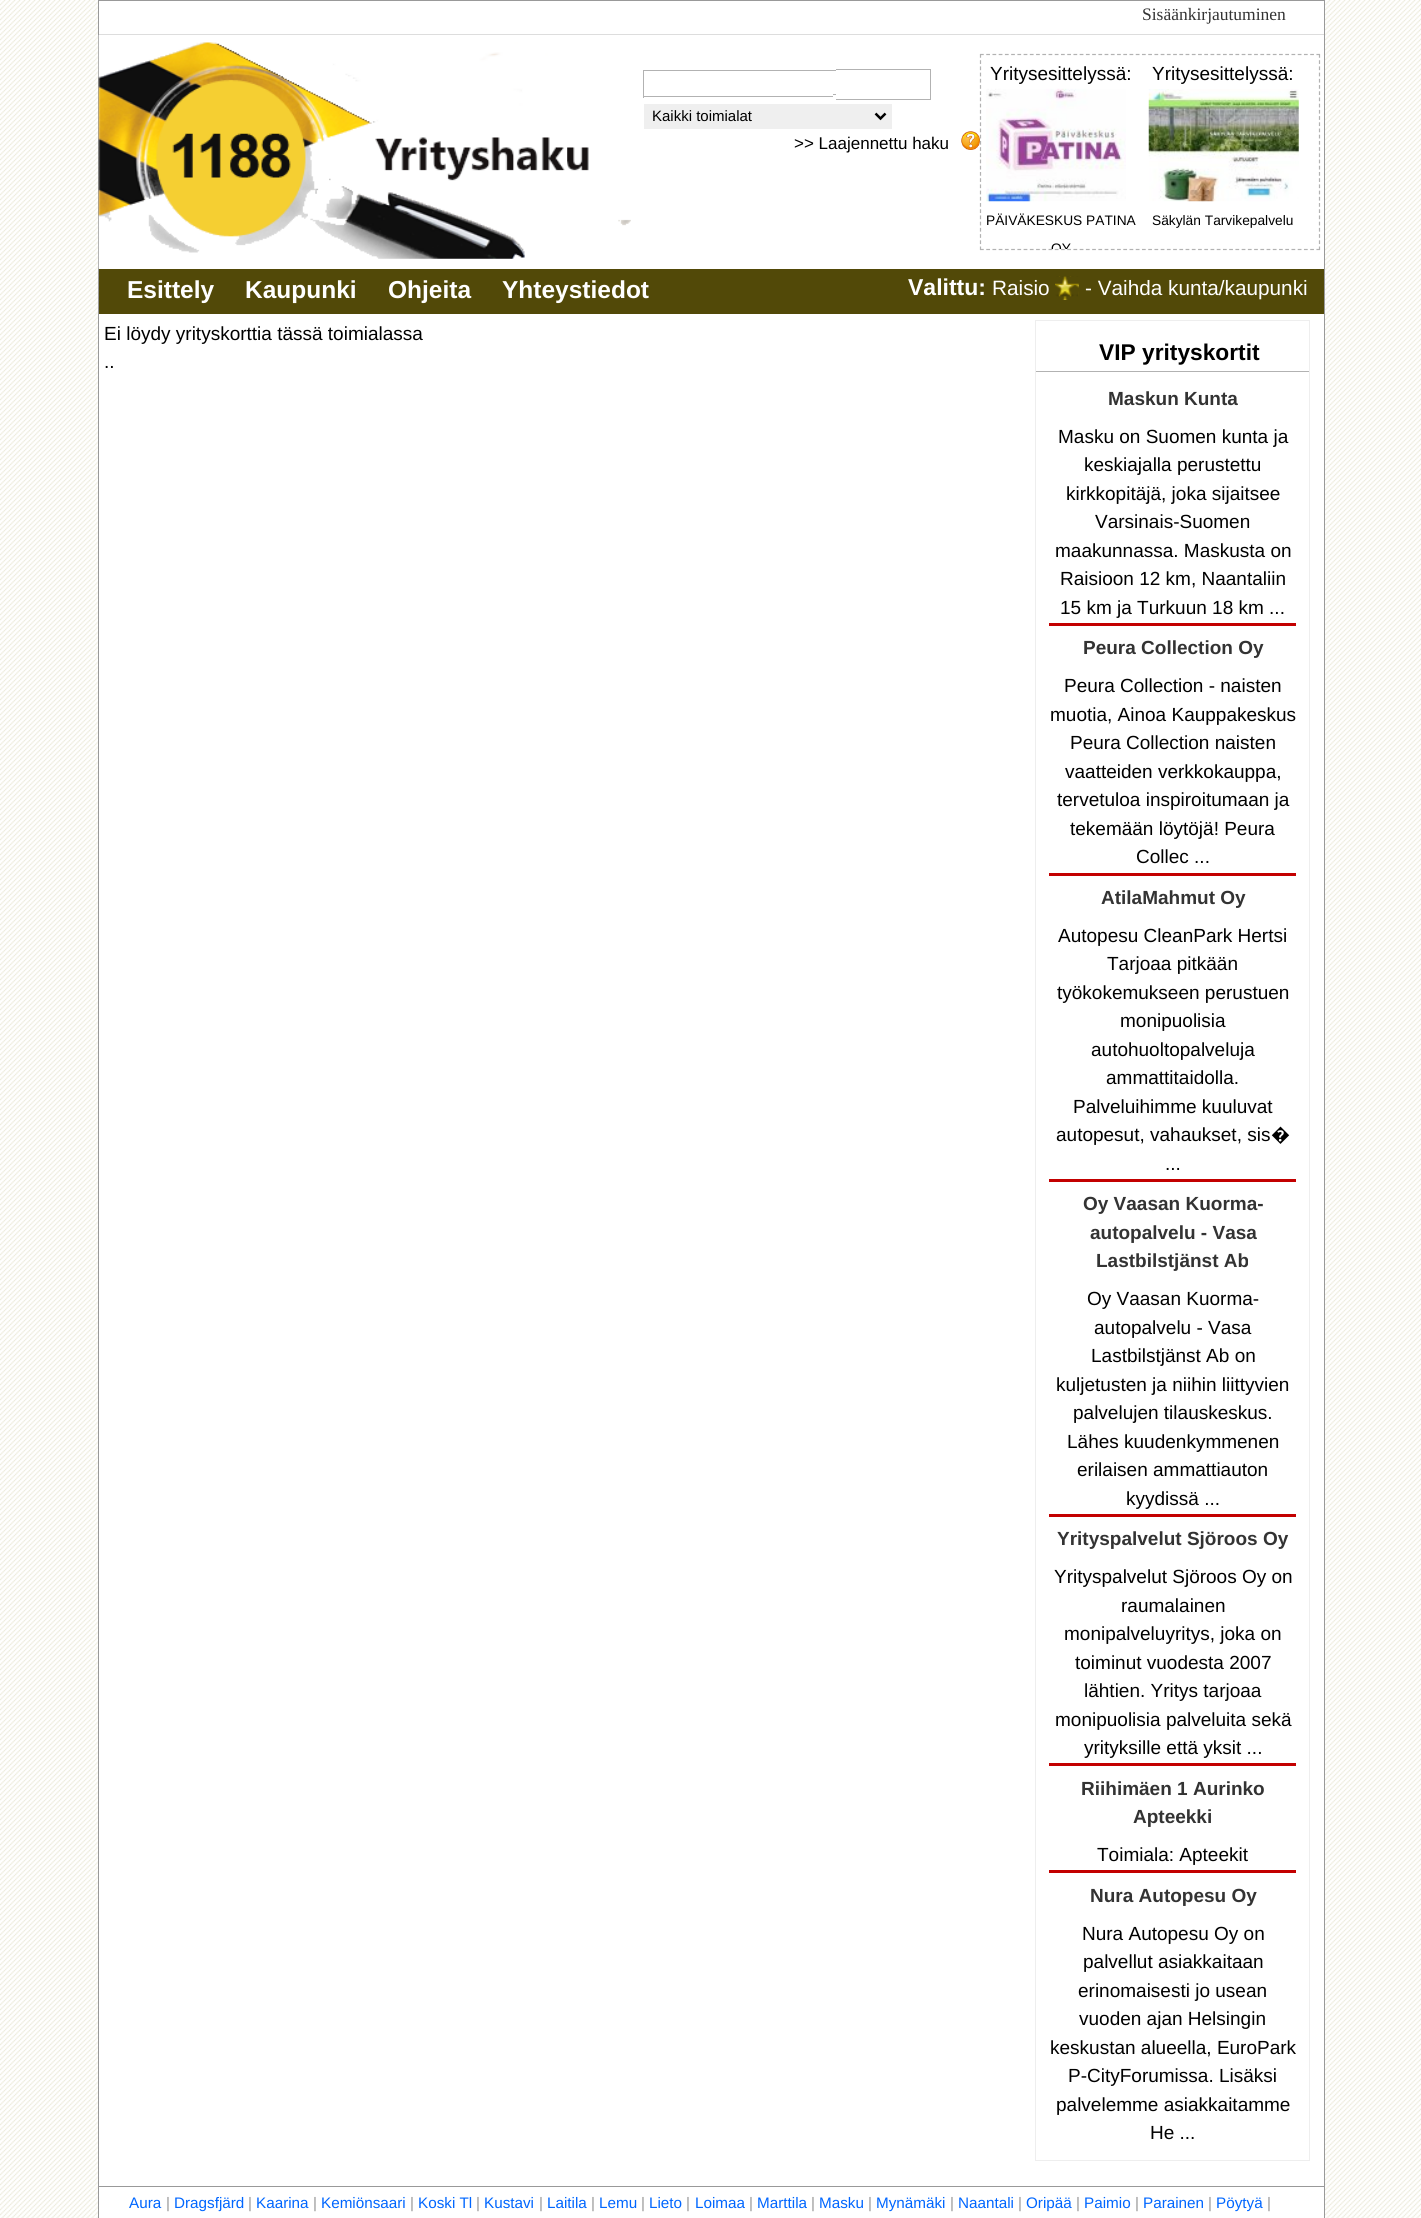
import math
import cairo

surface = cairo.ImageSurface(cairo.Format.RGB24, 1421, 2218)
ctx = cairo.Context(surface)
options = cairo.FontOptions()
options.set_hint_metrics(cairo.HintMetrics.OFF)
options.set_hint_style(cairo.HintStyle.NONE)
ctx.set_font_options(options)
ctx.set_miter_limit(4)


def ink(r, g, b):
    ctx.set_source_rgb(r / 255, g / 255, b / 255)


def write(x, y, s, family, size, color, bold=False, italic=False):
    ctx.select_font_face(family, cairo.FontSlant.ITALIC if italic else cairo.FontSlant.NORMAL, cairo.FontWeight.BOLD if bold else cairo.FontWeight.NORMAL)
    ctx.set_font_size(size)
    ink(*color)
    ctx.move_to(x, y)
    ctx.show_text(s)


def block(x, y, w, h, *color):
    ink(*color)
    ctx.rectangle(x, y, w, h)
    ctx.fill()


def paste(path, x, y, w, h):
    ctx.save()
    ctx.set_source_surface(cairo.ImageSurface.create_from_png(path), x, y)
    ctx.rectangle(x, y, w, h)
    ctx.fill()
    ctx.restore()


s1 = dict(family="Liberation Serif", size=17.5, color=(51, 51, 51))
s2 = dict(family="Liberation Sans", size=15, color=(0, 0, 0))
s3 = dict(family="Liberation Sans", size=17, color=(0, 0, 0))
s4 = dict(family="Liberation Sans", size=19, color=(0, 0, 0))
s5 = dict(family="Liberation Sans", size=13.75, color=(0, 0, 0))
s6 = dict(family="Liberation Sans", size=24.5, color=(255, 255, 255), bold=True)
s7 = dict(family="Liberation Sans", size=23, color=(255, 255, 255), bold=True)
s8 = dict(family="Liberation Sans", size=20.75, color=(255, 255, 255))
s9 = dict(family="Liberation Sans", size=22.75, color=(0, 0, 0), bold=True)
s10 = dict(family="Liberation Sans", size=19, color=(51, 51, 51), bold=True)
s11 = dict(family="Noto Sans", size=19, color=(0, 0, 0))
s12 = dict(family="Liberation Sans", size=15.25, color=(0, 102, 255))
s13 = dict(family="Liberation Sans", size=15.25, color=(153, 153, 153))

ink(255, 255, 255)
ctx.paint()
paste("pic1.png", 0, 0, 1421, 2218)
ink(255, 255, 255)
ctx.rectangle(98.5, 0.5, 1226, 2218)
ctx.fill_preserve()
ink(153, 153, 153)
ctx.set_line_width(1)
ctx.stroke()
block(99, 34, 1225, 1, 221, 221, 221)
write(1142, 20, "Sisäänkirjautuminen", **s1)
paste("pic2.png", 98, 35, 533, 234)
block(836, 69, 95, 1, 178, 178, 178)
block(643, 70, 194, 1, 178, 178, 178)
block(930, 69, 1, 31, 178, 178, 178)
block(643, 96, 190, 1, 178, 178, 178)
block(643, 70, 1, 28, 178, 178, 178)
block(833, 94, 4, 1, 178, 178, 178)
block(836, 70, 1, 25, 255, 255, 255)
block(836, 99, 95, 1, 178, 178, 178)
block(644, 104, 248, 25, 239, 239, 239)
ctx.new_path()
ctx.move_to(875.5, 113.5)
ctx.line_to(880.5, 118.5)
ctx.line_to(885.5, 113.5)
ink(0, 0, 0)
ctx.set_line_width(2.5)
ctx.stroke()
write(652, 121, "Kaikki toimialat", **s2)
write(794, 149, ">> Laajennettu haku", **s3)
paste("pic3.png", 961, 131, 19, 19)
ctx.new_path()
ctx.move_to(980, 54.5)
ctx.line_to(1320, 54.5)
ink(178, 178, 178)
ctx.set_line_width(1.2)
ctx.set_dash([3.75, 2.48])
ctx.stroke()
ctx.new_path()
ctx.move_to(1319.5, 54)
ctx.line_to(1319.5, 250)
ctx.set_dash([3.75, 2.46])
ctx.stroke()
ctx.new_path()
ctx.move_to(980, 249.5)
ctx.line_to(1320, 249.5)
ctx.set_dash([3.75, 2.48])
ctx.stroke()
ctx.new_path()
ctx.move_to(980.5, 54)
ctx.line_to(980.5, 250)
ctx.set_dash([3.75, 2.46])
ctx.stroke()
write(990, 80, "Yritysesittelyssä:", **s4)
paste("pic4.png", 986, 88, 140, 114)
write(986, 225, "PÄIVÄKESKUS PATINA", **s5)
ctx.save()
ctx.rectangle(981, 55, 338, 194)
ctx.clip()
write(1051, 253, "OY", **s5)
ctx.restore()
write(1152, 80, "Yritysesittelyssä:", **s4)
paste("pic5.png", 1148, 89, 151, 113)
write(1152, 225, "Säkylän Tarvikepalvelu", **s5)
block(99, 269, 1225, 45, 82, 73, 8)
write(127, 298, "Esittely", **s6)
write(245, 298, "Kaupunki", **s6)
write(388, 298, "Ohjeita", **s6)
write(502, 298, "Yhteystiedot", **s6)
write(908, 295, "Valittu:", **s7)
write(992, 295, "Raisio", **s8)
paste("pic6.png", 1055, 276, 24, 24)
write(1085, 295, "- Vaihda kunta/kaupunki", **s8)
write(104, 340, "Ei löydy yrityskorttia tässä toimialassa", **s4)
write(104, 368, "..", **s4)
ctx.rectangle(1035.5, 320.5, 274, 1840)
ink(238, 238, 238)
ctx.set_line_width(1)
ctx.set_dash([])
ctx.stroke()
block(1036, 371, 273, 1, 178, 178, 178)
write(1099, 360, "VIP yrityskortit", **s9)
write(1108, 405, "Maskun Kunta", **s10)
write(1058, 443, "Masku on Suomen kunta ja", **s4)
write(1084, 471, "keskiajalla perustettu", **s4)
write(1066, 500, "kirkkopitäjä, joka sijaitsee", **s4)
write(1095, 528, "Varsinais-Suomen", **s4)
write(1055, 557, "maakunnassa. Maskusta on", **s4)
write(1060, 585, "Raisioon 12 km, Naantaliin", **s4)
write(1060, 614, "15 km ja Turkuun 18 km ...", **s4)
block(1049, 623, 247, 3, 195, 0, 0)
write(1083, 654, "Peura Collection Oy", **s10)
write(1064, 692, "Peura Collection - naisten", **s4)
write(1050, 721, "muotia, Ainoa Kauppakeskus", **s4)
write(1070, 749, "Peura Collection naisten", **s4)
write(1065, 778, "vaatteiden verkkokauppa,", **s4)
write(1057, 806, "tervetuloa inspiroitumaan ja", **s4)
write(1070, 835, "tekemään löytöjä! Peura", **s4)
write(1136, 863, "Collec ...", **s4)
block(1049, 873, 247, 3, 195, 0, 0)
write(1101, 904, "AtilaMahmut Oy", **s10)
write(1058, 942, "Autopesu CleanPark Hertsi", **s4)
write(1107, 970, "Tarjoaa pitkään", **s4)
write(1057, 999, "työkokemukseen perustuen", **s4)
write(1120, 1027, "monipuolisia", **s4)
write(1091, 1056, "autohuoltopalveluja", **s4)
write(1106, 1084, "ammattitaidolla.", **s4)
write(1073, 1113, "Palveluihimme kuuluvat", **s4)
write(1056, 1141, "autopesut, vahaukset, sis", **s4)
write(1271, 1141, "�", **s11)
write(1165, 1170, "...", **s4)
block(1049, 1179, 247, 3, 195, 0, 0)
write(1083, 1210, "Oy Vaasan Kuorma-", **s10)
write(1090, 1239, "autopalvelu - Vasa", **s10)
write(1096, 1267, "Lastbilstjänst Ab", **s10)
write(1087, 1305, "Oy Vaasan Kuorma-", **s4)
write(1094, 1334, "autopalvelu - Vasa", **s4)
write(1091, 1362, "Lastbilstjänst Ab on", **s4)
write(1056, 1391, "kuljetusten ja niihin liittyvien", **s4)
write(1073, 1419, "palvelujen tilauskeskus.", **s4)
write(1067, 1448, "Lähes kuudenkymmenen", **s4)
write(1077, 1476, "erilaisen ammattiauton", **s4)
write(1126, 1505, "kyydissä ...", **s4)
block(1049, 1514, 247, 3, 195, 0, 0)
write(1057, 1545, "Yrityspalvelut Sjöroos Oy", **s10)
write(1054, 1583, "Yrityspalvelut Sjöroos Oy on", **s4)
write(1121, 1612, "raumalainen", **s4)
write(1064, 1640, "monipalveluyritys, joka on", **s4)
write(1075, 1669, "toiminut vuodesta 2007", **s4)
write(1084, 1697, "lähtien. Yritys tarjoaa", **s4)
write(1055, 1726, "monipuolisia palveluita sekä", **s4)
write(1084, 1754, "yrityksille että yksit ...", **s4)
block(1049, 1763, 247, 3, 195, 0, 0)
write(1081, 1795, "Riihimäen 1 Aurinko", **s10)
write(1133, 1823, "Apteekki", **s10)
write(1097, 1861, "Toimiala: Apteekit", **s4)
block(1049, 1870, 247, 3, 195, 0, 0)
write(1090, 1902, "Nura Autopesu Oy", **s10)
write(1082, 1940, "Nura Autopesu Oy on", **s4)
write(1083, 1968, "palvellut asiakkaitaan", **s4)
write(1078, 1997, "erinomaisesti jo usean", **s4)
write(1079, 2025, "vuoden ajan Helsingin", **s4)
write(1050, 2054, "keskustan alueella, EuroPark", **s4)
write(1068, 2082, "P-CityForumissa. Lisäksi", **s4)
write(1056, 2111, "palvelemme asiakkaitamme", **s4)
write(1150, 2139, "He ...", **s4)
block(99, 2186, 1225, 1, 153, 153, 153)
write(129, 2208, "Aura", **s12)
write(166, 2208, "|", **s13)
write(174, 2208, "Dragsfjärd", **s12)
write(248, 2208, "|", **s13)
write(256, 2208, "Kaarina", **s12)
write(313, 2208, "|", **s13)
write(321, 2208, "Kemiönsaari", **s12)
write(410, 2208, "|", **s13)
write(418, 2208, "Koski Tl", **s12)
write(476, 2208, "|", **s13)
write(484, 2208, "Kustavi", **s12)
write(539, 2208, "|", **s13)
write(547, 2208, "Laitila", **s12)
write(591, 2208, "|", **s13)
write(599, 2208, "Lemu", **s12)
write(641, 2208, "|", **s13)
write(649, 2208, "Lieto", **s12)
write(686, 2208, "|", **s13)
write(695, 2208, "Loimaa", **s12)
write(749, 2208, "|", **s13)
write(757, 2208, "Marttila", **s12)
write(811, 2208, "|", **s13)
write(819, 2208, "Masku", **s12)
write(868, 2208, "|", **s13)
write(876, 2208, "Mynämäki", **s12)
write(950, 2208, "|", **s13)
write(958, 2208, "Naantali", **s12)
write(1018, 2208, "|", **s13)
write(1026, 2208, "Oripää", **s12)
write(1076, 2208, "|", **s13)
write(1084, 2208, "Paimio", **s12)
write(1135, 2208, "|", **s13)
write(1143, 2208, "Parainen", **s12)
write(1208, 2208, "|", **s13)
write(1216, 2208, "Pöytyä", **s12)
write(1267, 2208, "|", **s13)
surface.write_to_png("screenshot.png")
